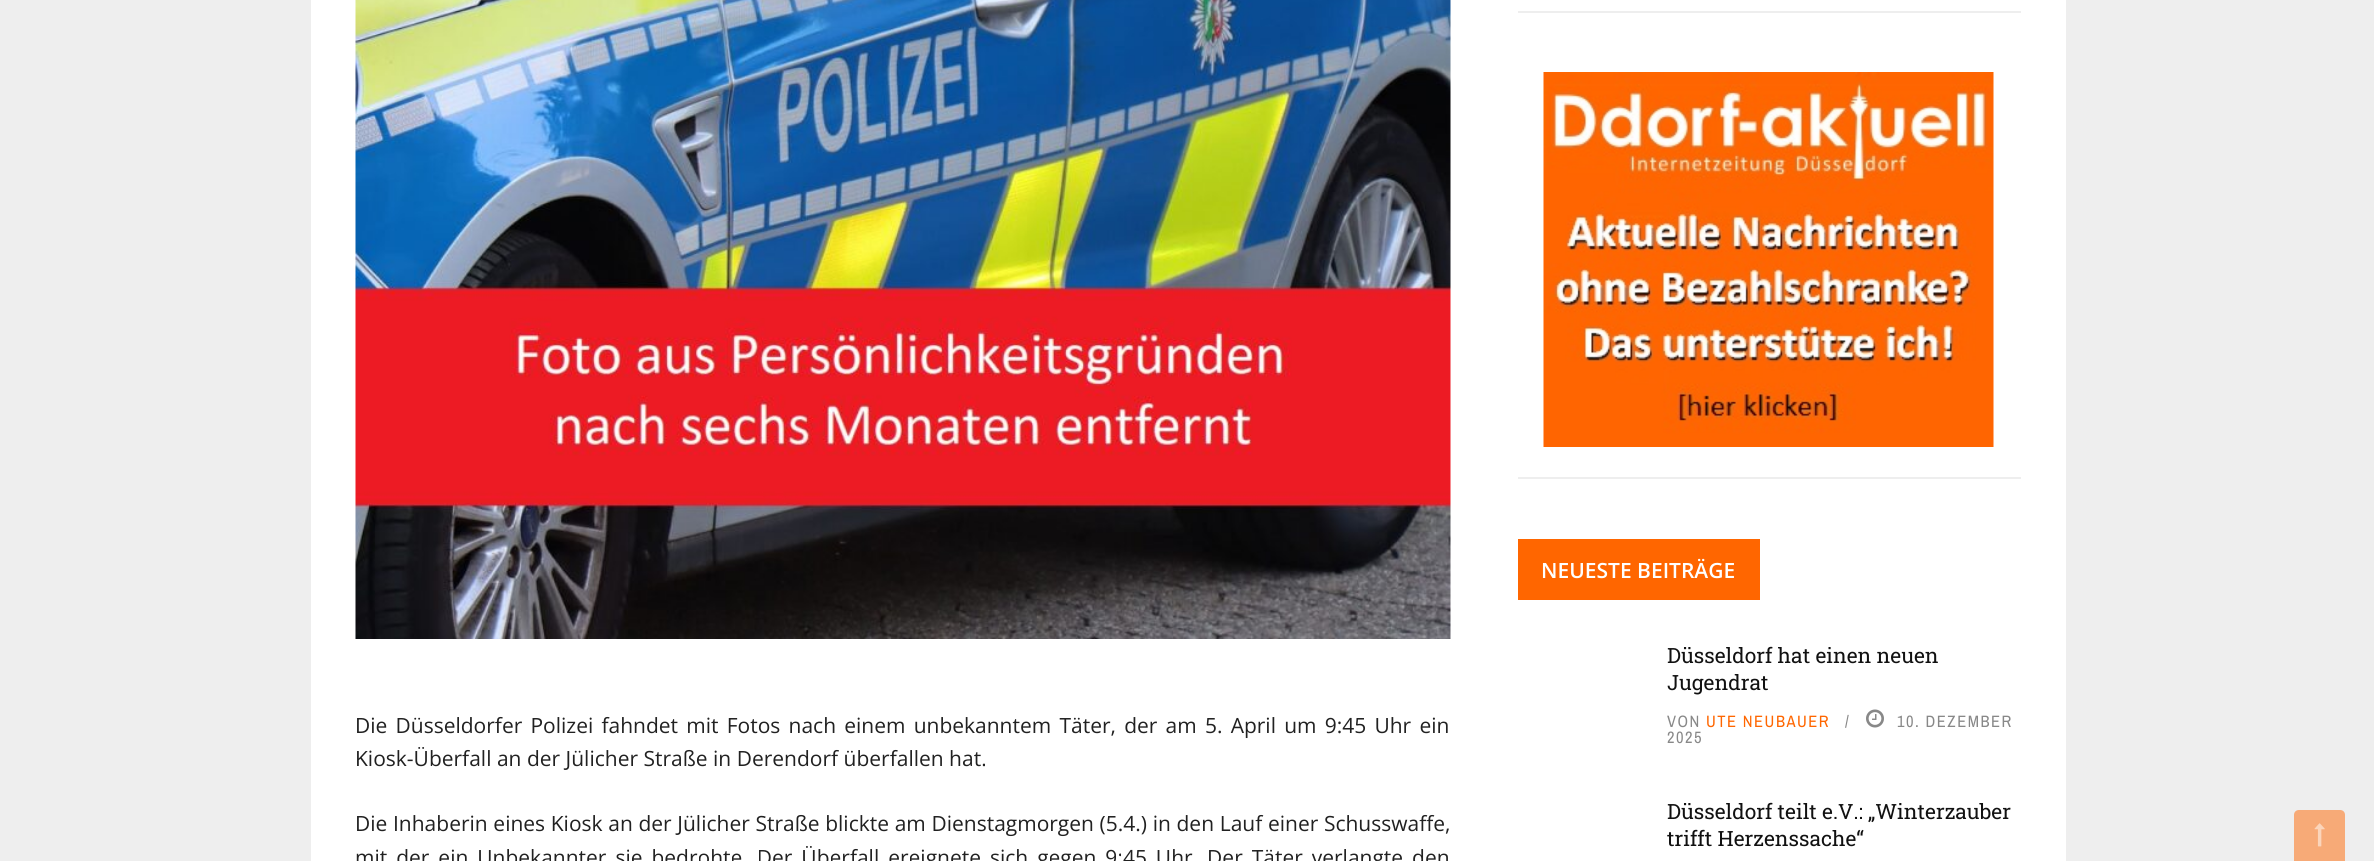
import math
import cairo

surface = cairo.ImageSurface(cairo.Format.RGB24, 2374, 861)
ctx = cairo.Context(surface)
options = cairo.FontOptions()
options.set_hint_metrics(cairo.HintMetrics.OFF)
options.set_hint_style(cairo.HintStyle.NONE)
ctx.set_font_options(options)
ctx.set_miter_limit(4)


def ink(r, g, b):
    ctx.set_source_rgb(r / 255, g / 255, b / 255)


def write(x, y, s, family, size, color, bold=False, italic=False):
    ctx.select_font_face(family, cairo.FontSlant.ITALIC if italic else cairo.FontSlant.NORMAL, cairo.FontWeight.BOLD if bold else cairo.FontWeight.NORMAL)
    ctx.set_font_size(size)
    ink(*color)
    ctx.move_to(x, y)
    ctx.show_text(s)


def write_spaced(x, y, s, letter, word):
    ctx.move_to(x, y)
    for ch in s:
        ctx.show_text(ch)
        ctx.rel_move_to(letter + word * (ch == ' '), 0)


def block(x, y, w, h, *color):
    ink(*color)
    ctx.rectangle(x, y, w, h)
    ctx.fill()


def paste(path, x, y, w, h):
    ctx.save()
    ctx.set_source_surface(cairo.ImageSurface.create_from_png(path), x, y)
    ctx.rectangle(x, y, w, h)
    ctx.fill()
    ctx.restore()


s1 = dict(family="Open Sans", size=21, color=(33, 33, 33))
s2 = dict(family="Open Sans SemiBold", size=21, color=(255, 255, 255))
s3 = dict(family="Roboto Slab", size=21, color=(17, 17, 17))

ink(238, 238, 238)
ctx.paint()
block(311, 0, 1755, 861, 255, 255, 255)
paste("pic1.png", 355, 0, 1096, 639)
ctx.select_font_face("Open Sans")
ctx.set_font_size(21)
ink(33, 33, 33)
write_spaced(355, 733, "Die Düsseldorfer Polizei fahndet mit Fotos nach einem unbekanntem Täter, der am 5. April um 9:45 Uhr ein", 0, 2.75)
write(355, 766, "Kiosk-Überfall an der Jülicher Straße in Derendorf überfallen hat.", **s1)
write_spaced(355, 831, "Die Inhaberin eines Kiosk an der Jülicher Straße blickte am Dienstagmorgen (5.4.) in den Lauf einer Schusswaffe,", 0, 0.2)
write_spaced(355, 865, "mit der ein Unbekannter sie bedrohte. Der Überfall ereignete sich gegen 9:45 Uhr. Der Täter verlangte den", 0, 3.5)
block(1518, 11, 503, 2, 238, 238, 238)
paste("pic2.png", 1543, 72, 451, 375)
block(1518, 477, 503, 2, 238, 238, 238)
block(1518, 539, 242, 61, 255, 102, 0)
write(1541, 578, "NEUESTE BEITRÄGE", **s2)
write(1667, 663, "Düsseldorf hat einen neuen", **s3)
write(1667, 690, "Jugendrat", **s3)
ctx.select_font_face("Archivo Narrow")
ctx.set_font_size(16.5)
ink(136, 136, 136)
write_spaced(1667, 727, "VON", 1.5, 0)
write_spaced(1845, 727, "/", 1.5, 0)
paste("pic3.png", 1866, 709, 18, 19)
write_spaced(1897, 727, "10. DEZEMBER", 1.5, 0)
write_spaced(1667, 743, "2025", 1.5, 0)
ink(255, 102, 0)
write_spaced(1706, 727, "UTE NEUBAUER", 1.5, 0)
write(1667, 819, "Düsseldorf teilt e.V.: „Winterzauber", **s3)
write(1667, 846, "trifft Herzenssache“", **s3)
ink(247, 170, 119)
ctx.new_path()
ctx.move_to(2299, 810)
ctx.line_to(2340, 810)
ctx.curve_to(2343, 810, 2345, 812, 2345, 815)
ctx.line_to(2345, 861)
ctx.line_to(2294, 861)
ctx.line_to(2294, 815)
ctx.curve_to(2294, 812, 2296, 810, 2299, 810)
ctx.close_path()
ctx.fill()
paste("pic4.png", 2314, 823, 11, 24)
surface.write_to_png("screenshot.png")
